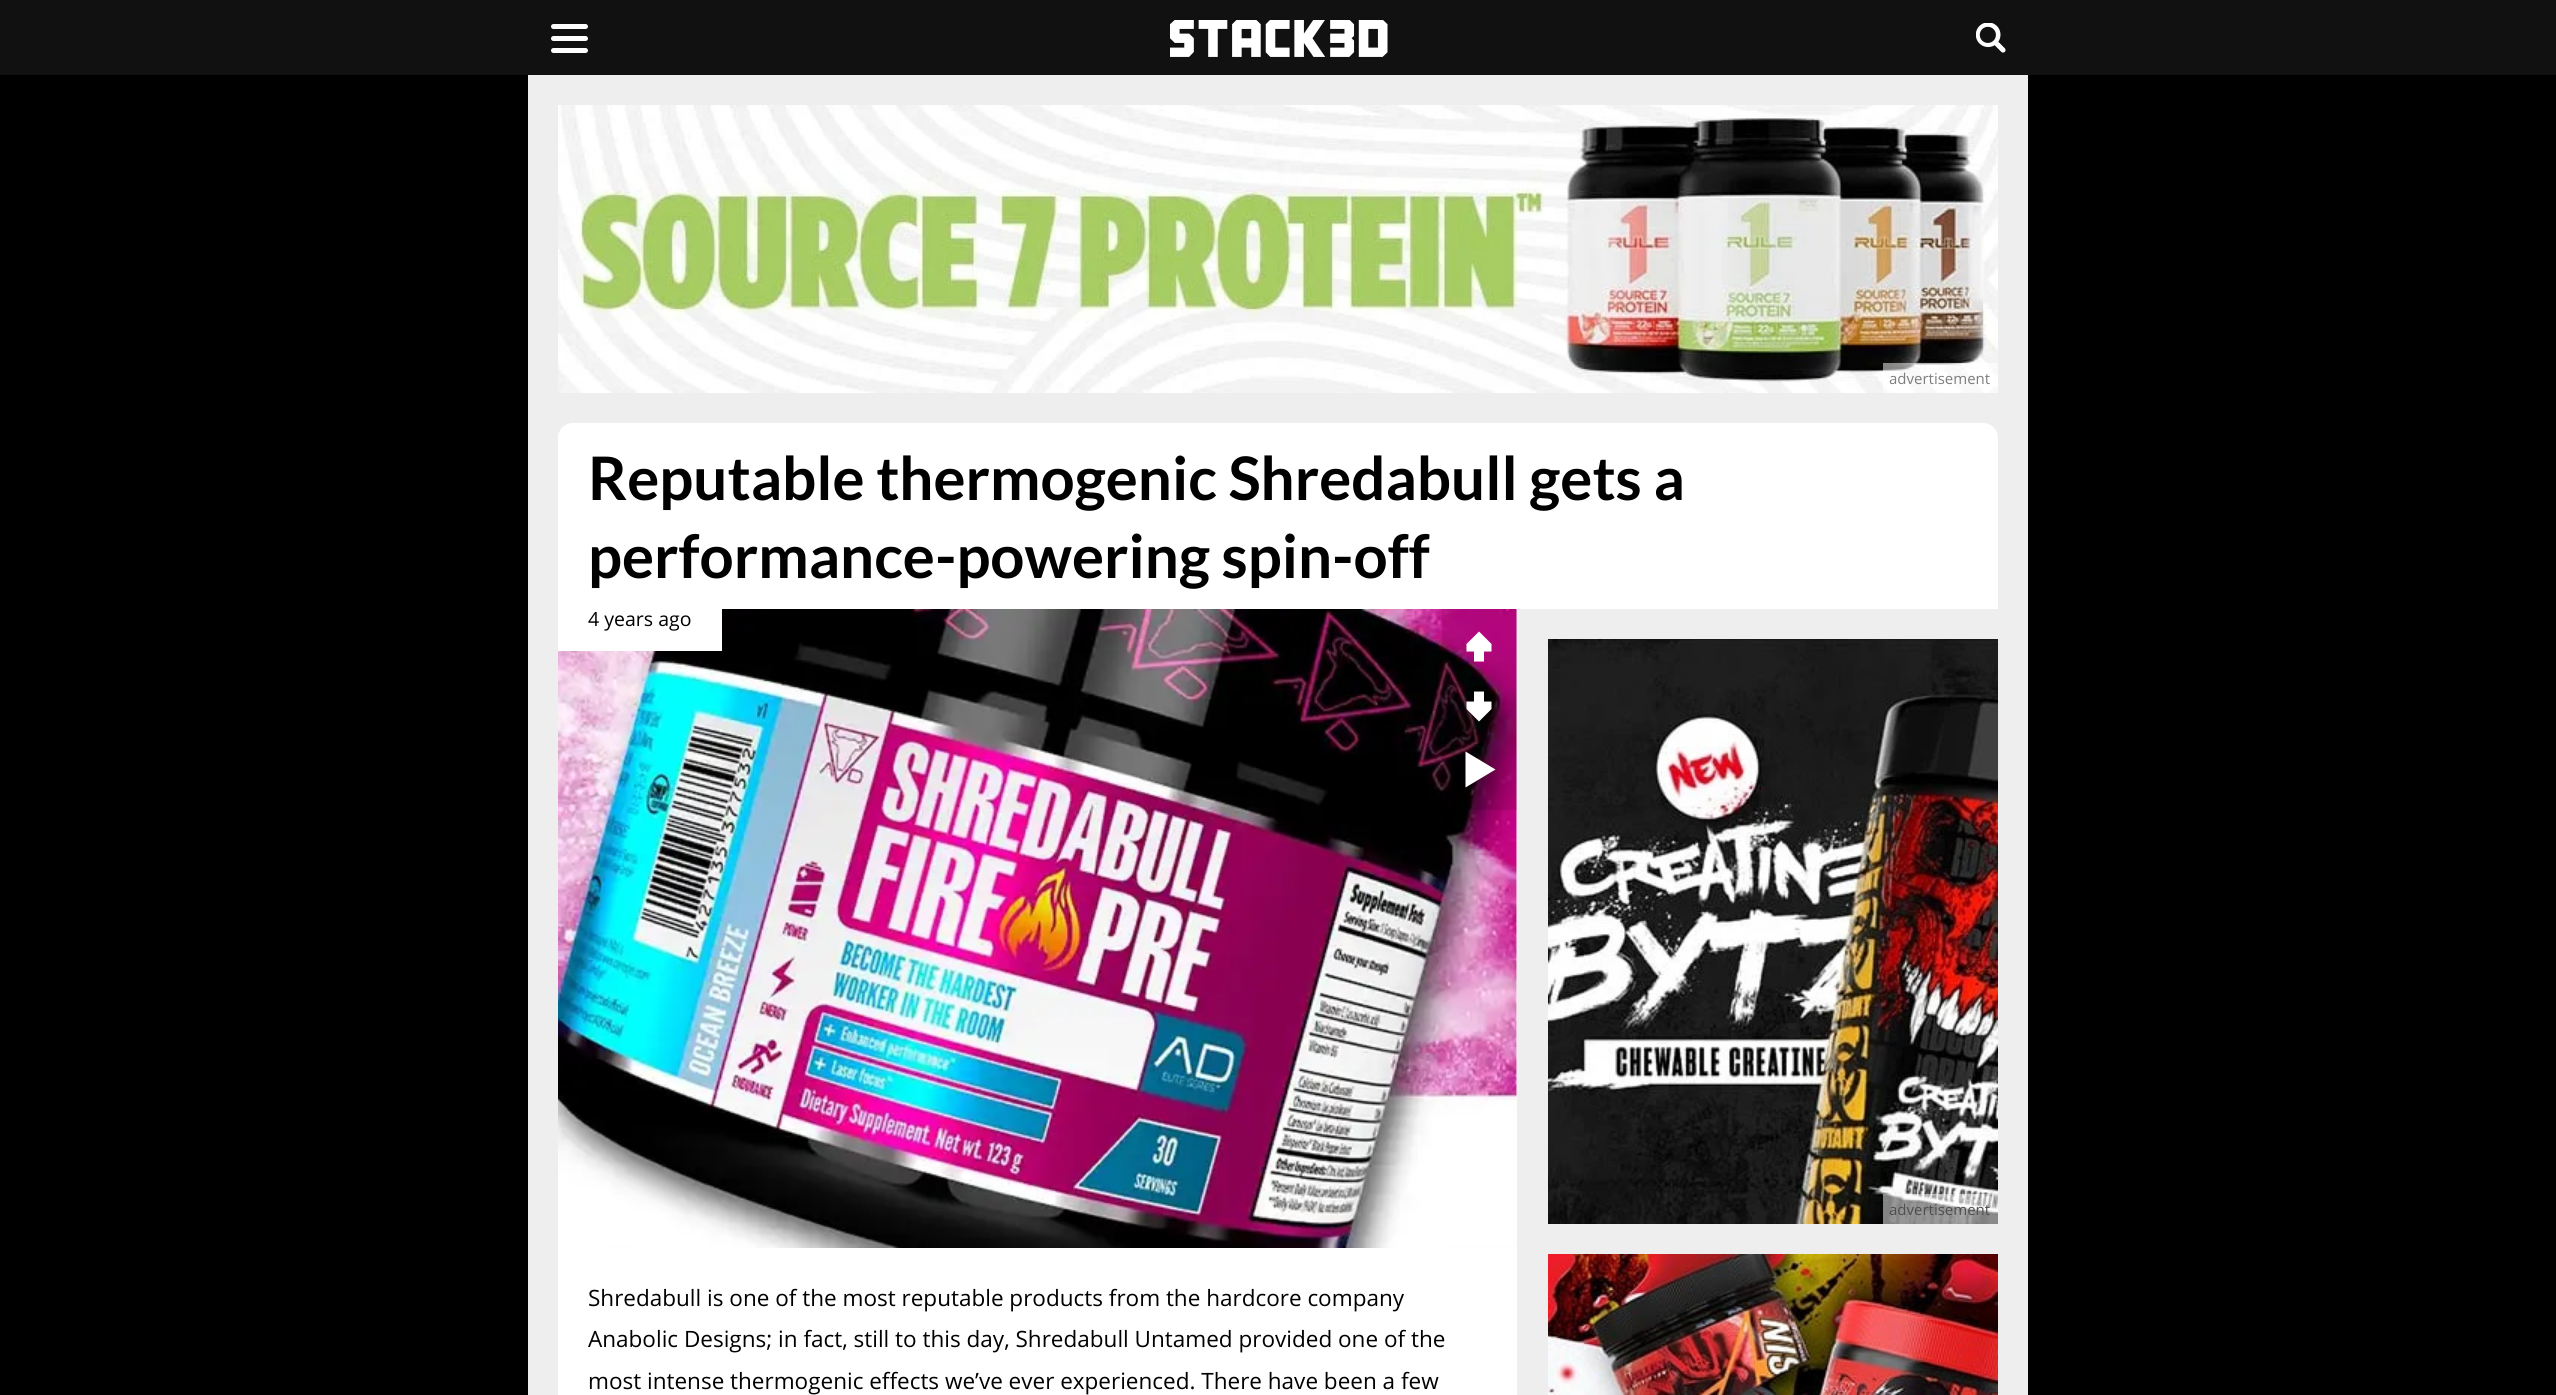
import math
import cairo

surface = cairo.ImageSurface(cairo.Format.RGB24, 2556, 1395)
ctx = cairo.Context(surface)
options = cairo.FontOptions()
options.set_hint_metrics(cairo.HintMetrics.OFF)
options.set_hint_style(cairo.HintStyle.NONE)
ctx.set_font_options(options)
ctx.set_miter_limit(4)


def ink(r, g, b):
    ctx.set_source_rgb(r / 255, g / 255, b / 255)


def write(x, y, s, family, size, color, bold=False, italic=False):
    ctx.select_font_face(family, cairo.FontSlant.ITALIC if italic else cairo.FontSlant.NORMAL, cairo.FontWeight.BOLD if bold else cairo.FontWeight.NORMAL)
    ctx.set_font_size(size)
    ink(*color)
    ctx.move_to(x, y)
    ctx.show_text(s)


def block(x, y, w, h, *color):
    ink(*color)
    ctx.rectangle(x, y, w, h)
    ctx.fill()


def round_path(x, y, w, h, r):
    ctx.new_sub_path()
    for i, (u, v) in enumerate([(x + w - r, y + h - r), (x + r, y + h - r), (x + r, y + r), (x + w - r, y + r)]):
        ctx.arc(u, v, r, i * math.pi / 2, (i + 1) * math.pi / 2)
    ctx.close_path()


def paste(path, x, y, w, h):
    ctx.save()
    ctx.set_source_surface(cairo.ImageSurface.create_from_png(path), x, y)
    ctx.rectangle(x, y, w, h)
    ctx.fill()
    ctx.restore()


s1 = dict(family="Open Sans", size=15, color=(126, 126, 126))
s2 = dict(family="Lato", size=60, color=(0, 0, 0), bold=True)
s3 = dict(family="Open Sans", size=19.5, color=(0, 0, 0))
s4 = dict(family="Open Sans", size=22.5, color=(0, 0, 0))
s5 = dict(family="Open Sans", size=15, color=(79, 79, 79))

ink(0, 0, 0)
ctx.paint()
block(0, 0, 2556, 75, 17, 17, 17)
ink(255, 255, 255)
round_path(551, 36, 37, 5, 2.5)
ctx.fill()
round_path(551, 24, 37, 5, 2.5)
ctx.fill()
round_path(551, 48, 37, 5, 2.5)
ctx.fill()
paste("pic1.png", 1170, 20, 218, 37)
paste("pic2.png", 1976, 23, 30, 30)
block(528, 75, 1500, 1320, 238, 238, 238)
paste("pic3.png", 558, 105, 1440, 288)
ctx.set_source_rgba(1, 1, 1, 0.5)
ctx.rectangle(1883, 363, 115, 30)
ctx.fill()
write(1889, 384, "advertisement", **s1)
ink(255, 255, 255)
ctx.new_path()
ctx.move_to(573, 423)
ctx.line_to(1983, 423)
ctx.curve_to(1991.5, 423, 1998, 429.5, 1998, 438)
ctx.line_to(1998, 609)
ctx.line_to(558, 609)
ctx.line_to(558, 438)
ctx.curve_to(558, 429.5, 564.5, 423, 573, 423)
ctx.close_path()
ctx.fill()
write(588, 500, "Reputable thermogenic Shredabull gets a", **s2)
write(588, 578, "performance-powering spin-off", **s2)
block(558, 609, 959, 786, 255, 255, 255)
paste("pic4.png", 558, 609, 959, 639)
block(558, 609, 164, 42, 255, 255, 255)
write(588, 626, "4 years ago", **s3)
ctx.set_source_rgba(0, 0, 0, 0.1)
ctx.rectangle(1442, 609, 75, 201)
ctx.fill()
ink(255, 255, 255)
ctx.new_path()
ctx.move_to(1479, 631.5)
ctx.line_to(1491.5, 644)
ctx.line_to(1491.5, 651.5)
ctx.line_to(1484, 651.5)
ctx.line_to(1484, 661.5)
ctx.line_to(1474, 661.5)
ctx.line_to(1474, 651.5)
ctx.line_to(1466.5, 651.5)
ctx.line_to(1466.5, 644)
ctx.close_path()
ctx.fill()
ctx.new_path()
ctx.move_to(1479, 721.5)
ctx.line_to(1466.5, 709)
ctx.line_to(1466.5, 701.5)
ctx.line_to(1474, 701.5)
ctx.line_to(1474, 691.5)
ctx.line_to(1484, 691.5)
ctx.line_to(1484, 701.5)
ctx.line_to(1491.5, 701.5)
ctx.line_to(1491.5, 709)
ctx.close_path()
ctx.fill()
ctx.new_path()
ctx.move_to(1465.5, 787.5)
ctx.line_to(1465.5, 751.5)
ctx.line_to(1495.5, 769.5)
ctx.close_path()
ctx.fill()
write(588, 1306, "Shredabull is one of the most reputable products from the hardcore company", **s4)
write(588, 1347, "Anabolic Designs; in fact, still to this day, Shredabull Untamed provided one of the", **s4)
write(588, 1389, "most intense thermogenic effects we’ve ever experienced. There have been a few", **s4)
paste("pic5.png", 1548, 639, 450, 585)
ctx.set_source_rgba(1, 1, 1, 0.5)
ctx.rectangle(1883, 1194, 115, 30)
ctx.fill()
write(1889, 1215, "advertisement", **s5)
paste("pic6.png", 1548, 1254, 450, 141)
surface.write_to_png("screenshot.png")
